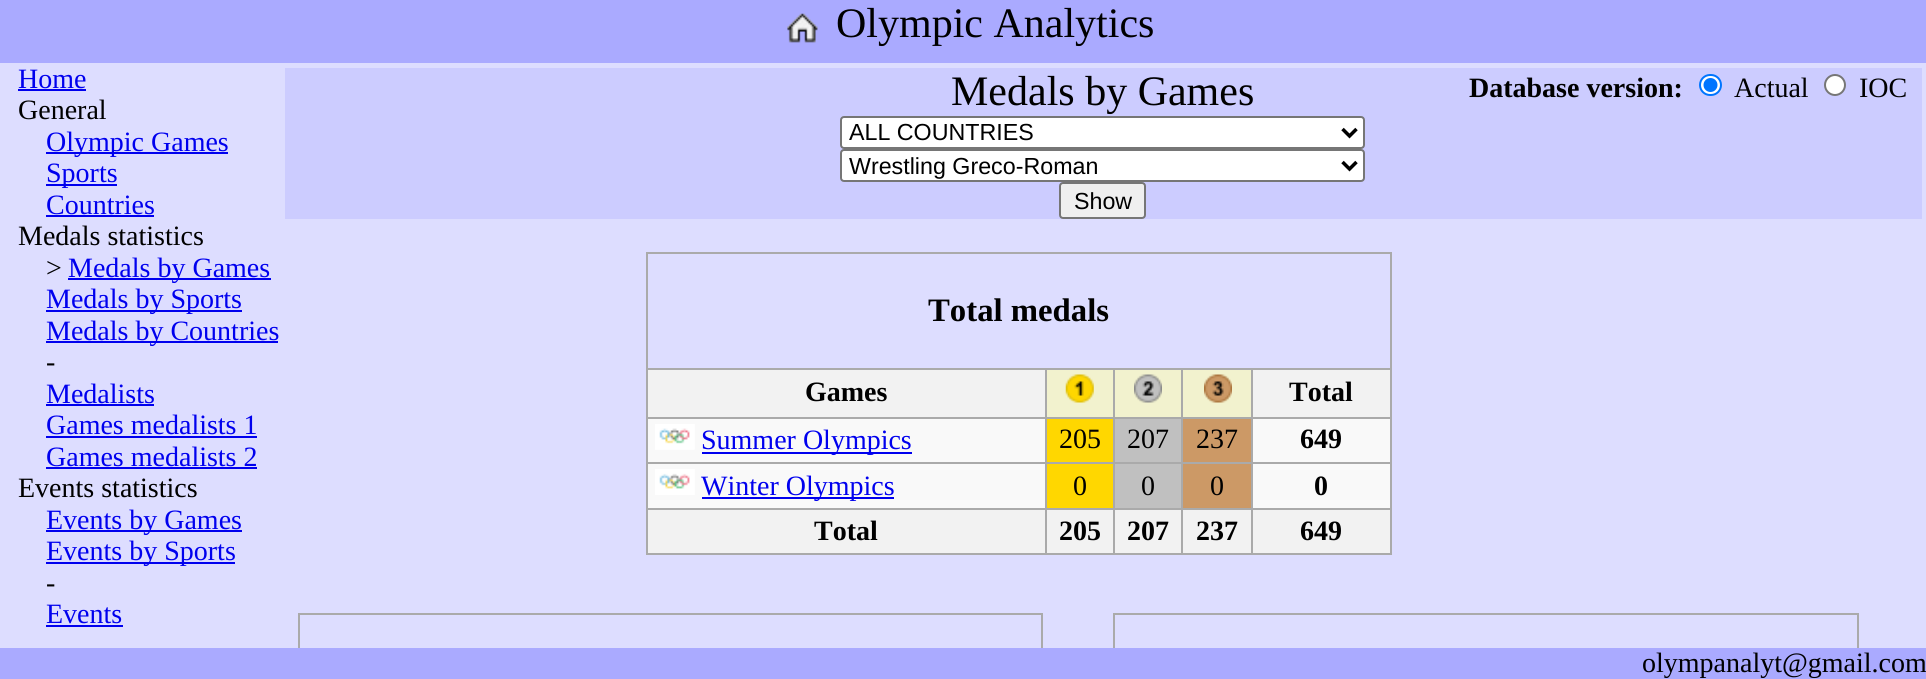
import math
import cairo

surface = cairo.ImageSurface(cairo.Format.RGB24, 1926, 679)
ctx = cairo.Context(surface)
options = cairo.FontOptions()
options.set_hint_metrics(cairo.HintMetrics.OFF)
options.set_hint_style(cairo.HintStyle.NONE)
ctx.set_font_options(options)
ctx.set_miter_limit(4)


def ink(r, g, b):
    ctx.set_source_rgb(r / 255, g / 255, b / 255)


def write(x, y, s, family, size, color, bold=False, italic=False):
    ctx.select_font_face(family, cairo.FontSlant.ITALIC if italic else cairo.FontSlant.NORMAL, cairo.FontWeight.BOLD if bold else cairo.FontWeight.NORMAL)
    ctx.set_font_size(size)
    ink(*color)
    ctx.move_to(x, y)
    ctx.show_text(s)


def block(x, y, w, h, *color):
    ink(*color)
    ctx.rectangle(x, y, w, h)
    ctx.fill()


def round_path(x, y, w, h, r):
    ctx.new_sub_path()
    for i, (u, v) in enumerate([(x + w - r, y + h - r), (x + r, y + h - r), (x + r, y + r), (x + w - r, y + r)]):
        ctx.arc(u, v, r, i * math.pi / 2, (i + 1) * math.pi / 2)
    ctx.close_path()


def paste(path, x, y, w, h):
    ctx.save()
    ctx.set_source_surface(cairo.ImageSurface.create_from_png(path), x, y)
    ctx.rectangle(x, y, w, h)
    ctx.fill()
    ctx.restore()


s1 = dict(family="Liberation Serif", size=42, color=(0, 0, 0))
s2 = dict(family="Liberation Serif", size=28, color=(0, 0, 238))
s3 = dict(family="Liberation Serif", size=28, color=(0, 0, 0))
s4 = dict(family="Liberation Serif", size=28, color=(0, 0, 0), bold=True)
s5 = dict(family="Liberation Sans", size=23.25, color=(0, 0, 0))
s6 = dict(family="Liberation Serif", size=32.75, color=(0, 0, 0), bold=True)

ink(170, 170, 255)
ctx.paint()
paste("pic1.png", 787, 13, 31, 30)
write(836, 37, "Olympic Analytics", **s1)
block(0, 63, 1926, 585, 221, 221, 255)
write(18, 88, "Home", **s2)
block(18, 89, 68, 2, 0, 0, 238)
write(18, 119, "General", **s3)
block(46, 152, 182, 2, 0, 0, 238)
write(46, 151, "Olympic Games", **s2)
block(46, 184, 71, 2, 0, 0, 238)
write(46, 182, "Sports", **s2)
write(46, 214, "Countries", **s2)
block(46, 215, 108, 2, 0, 0, 238)
write(18, 245, "Medals statistics", **s3)
write(46, 277, ">", **s3)
block(68, 278, 203, 2, 0, 0, 238)
write(68, 277, "Medals by Games", **s2)
block(46, 310, 196, 2, 0, 0, 238)
write(46, 308, "Medals by Sports", **s2)
block(46, 341, 232, 2, 0, 0, 238)
write(46, 340, "Medals by Countries", **s2)
write(46, 371, "-", **s3)
write(46, 403, "Medalists", **s2)
block(46, 404, 108, 2, 0, 0, 238)
write(46, 434, "Games medalists 1", **s2)
block(46, 436, 211, 2, 0, 0, 238)
write(46, 466, "Games medalists 2", **s2)
block(46, 467, 211, 2, 0, 0, 238)
write(18, 497, "Events statistics", **s3)
block(46, 530, 196, 2, 0, 0, 238)
write(46, 529, "Events by Games", **s2)
block(46, 562, 189, 2, 0, 0, 238)
write(46, 560, "Events by Sports", **s2)
write(46, 592, "-", **s3)
write(46, 623, "Events", **s2)
block(46, 625, 77, 2, 0, 0, 238)
block(285, 68, 1637, 151, 204, 204, 255)
write(951, 105, "Medals by Games", **s1)
write(1469, 97, "Database version:", **s4)
ink(255, 255, 255)
round_path(1700, 75, 21, 20, 10)
ctx.fill_preserve()
ink(0, 117, 255)
ctx.stroke()
ctx.arc(1710.5, 85, 7, 0, 2 * math.pi)
ctx.fill()
write(1734, 97, "Actual", **s3)
ink(255, 255, 255)
ctx.new_path()
ctx.arc(1835, 85, 10, 0, 2 * math.pi)
ctx.fill_preserve()
ink(118, 118, 118)
ctx.stroke()
write(1859, 97, "IOC", **s3)
ink(255, 255, 255)
round_path(841, 117, 523, 31, 3)
ctx.fill_preserve()
ink(118, 118, 118)
ctx.stroke()
ctx.new_path()
ctx.move_to(1342.5, 129)
ctx.line_to(1349.5, 136)
ctx.line_to(1356.5, 129)
ink(0, 0, 0)
ctx.set_line_width(3.5)
ctx.stroke()
write(849, 140, "ALL COUNTRIES", **s5)
ink(255, 255, 255)
round_path(841, 150, 523, 31, 3)
ctx.fill_preserve()
ink(118, 118, 118)
ctx.set_line_width(2)
ctx.stroke()
ctx.new_path()
ctx.move_to(1342.5, 162)
ctx.line_to(1349.5, 169)
ctx.line_to(1356.5, 162)
ink(0, 0, 0)
ctx.set_line_width(3.5)
ctx.stroke()
write(849, 174, "Wrestling Greco-Roman", **s5)
ink(239, 239, 239)
round_path(1060, 183, 85, 35, 3)
ctx.fill_preserve()
ink(118, 118, 118)
ctx.set_line_width(2)
ctx.stroke()
write(1074, 209, "Show", **s5)
block(648, 419, 742, 89, 249, 249, 249)
block(646, 252, 745, 2, 170, 170, 170)
block(1390, 252, 2, 303, 170, 170, 170)
block(646, 553, 745, 2, 170, 170, 170)
block(646, 252, 2, 303, 170, 170, 170)
write(928, 321, "Total medals", **s6)
block(648, 370, 397, 47, 242, 242, 242)
block(1251, 368, 140, 2, 170, 170, 170)
block(1251, 417, 140, 2, 170, 170, 170)
block(1251, 462, 140, 2, 170, 170, 170)
block(1251, 508, 140, 2, 170, 170, 170)
block(1251, 508, 2, 47, 170, 170, 170)
block(1181, 508, 72, 2, 170, 170, 170)
block(1251, 462, 2, 47, 170, 170, 170)
block(1181, 462, 72, 2, 170, 170, 170)
block(1251, 417, 2, 47, 170, 170, 170)
block(1181, 417, 72, 2, 170, 170, 170)
block(1251, 368, 2, 50, 170, 170, 170)
block(1181, 368, 72, 2, 170, 170, 170)
block(1181, 508, 2, 47, 170, 170, 170)
block(1113, 508, 70, 2, 170, 170, 170)
block(1181, 462, 2, 47, 170, 170, 170)
block(1113, 462, 70, 2, 170, 170, 170)
block(1181, 417, 2, 47, 170, 170, 170)
block(1113, 417, 70, 2, 170, 170, 170)
block(1181, 368, 2, 50, 170, 170, 170)
block(1113, 368, 70, 2, 170, 170, 170)
block(1113, 508, 2, 47, 170, 170, 170)
block(1045, 508, 70, 2, 170, 170, 170)
block(1113, 462, 2, 47, 170, 170, 170)
block(1045, 462, 70, 2, 170, 170, 170)
block(1113, 417, 2, 47, 170, 170, 170)
block(1045, 417, 70, 2, 170, 170, 170)
block(1113, 368, 2, 50, 170, 170, 170)
block(1045, 368, 70, 2, 170, 170, 170)
block(1045, 508, 2, 47, 170, 170, 170)
block(646, 508, 401, 2, 170, 170, 170)
block(1045, 462, 2, 47, 170, 170, 170)
block(646, 462, 401, 2, 170, 170, 170)
block(1045, 417, 2, 47, 170, 170, 170)
block(646, 417, 401, 2, 170, 170, 170)
block(1045, 368, 2, 50, 170, 170, 170)
block(646, 368, 401, 2, 170, 170, 170)
write(805, 401, "Games", **s4)
block(1047, 370, 66, 47, 242, 242, 206)
paste("pic2.png", 1065, 374, 29, 29)
block(1115, 370, 66, 47, 242, 242, 206)
paste("pic3.png", 1134, 374, 28, 29)
block(1183, 370, 68, 47, 242, 242, 206)
paste("pic4.png", 1204, 374, 28, 29)
block(1253, 370, 137, 47, 242, 242, 242)
write(1289, 401, "Total", **s4)
paste("pic5.png", 655, 424, 40, 26)
block(702, 452, 210, 2, 0, 0, 238)
write(701, 449, "Summer Olympics", **s2)
block(1047, 419, 66, 43, 255, 215, 0)
write(1059, 448, "205", **s3)
block(1115, 419, 66, 43, 192, 192, 192)
write(1127, 448, "207", **s3)
block(1183, 419, 68, 43, 204, 153, 102)
write(1196, 448, "237", **s3)
write(1300, 448, "649", **s4)
paste("pic6.png", 655, 469, 40, 26)
block(702, 497, 192, 2, 0, 0, 238)
write(701, 495, "Winter Olympics", **s2)
block(1047, 464, 66, 44, 255, 215, 0)
write(1073, 495, "0", **s3)
block(1115, 464, 66, 44, 192, 192, 192)
write(1141, 495, "0", **s3)
block(1183, 464, 68, 44, 204, 153, 102)
write(1210, 495, "0", **s3)
write(1314, 495, "0", **s4)
block(648, 510, 397, 43, 242, 242, 242)
write(814, 540, "Total", **s4)
block(1047, 510, 66, 43, 242, 242, 242)
write(1059, 540, "205", **s4)
block(1115, 510, 66, 43, 242, 242, 242)
write(1127, 540, "207", **s4)
block(1183, 510, 68, 43, 242, 242, 242)
write(1196, 540, "237", **s4)
block(1253, 510, 137, 43, 242, 242, 242)
write(1300, 540, "649", **s4)
block(298, 613, 745, 2, 170, 170, 170)
block(1041, 613, 2, 35, 170, 170, 170)
block(298, 613, 2, 35, 170, 170, 170)
block(1113, 613, 746, 2, 170, 170, 170)
block(1857, 613, 2, 35, 170, 170, 170)
block(1113, 613, 2, 35, 170, 170, 170)
write(1642, 672, "olympanalyt@gmail.com", **s3)
surface.write_to_png("screenshot.png")
